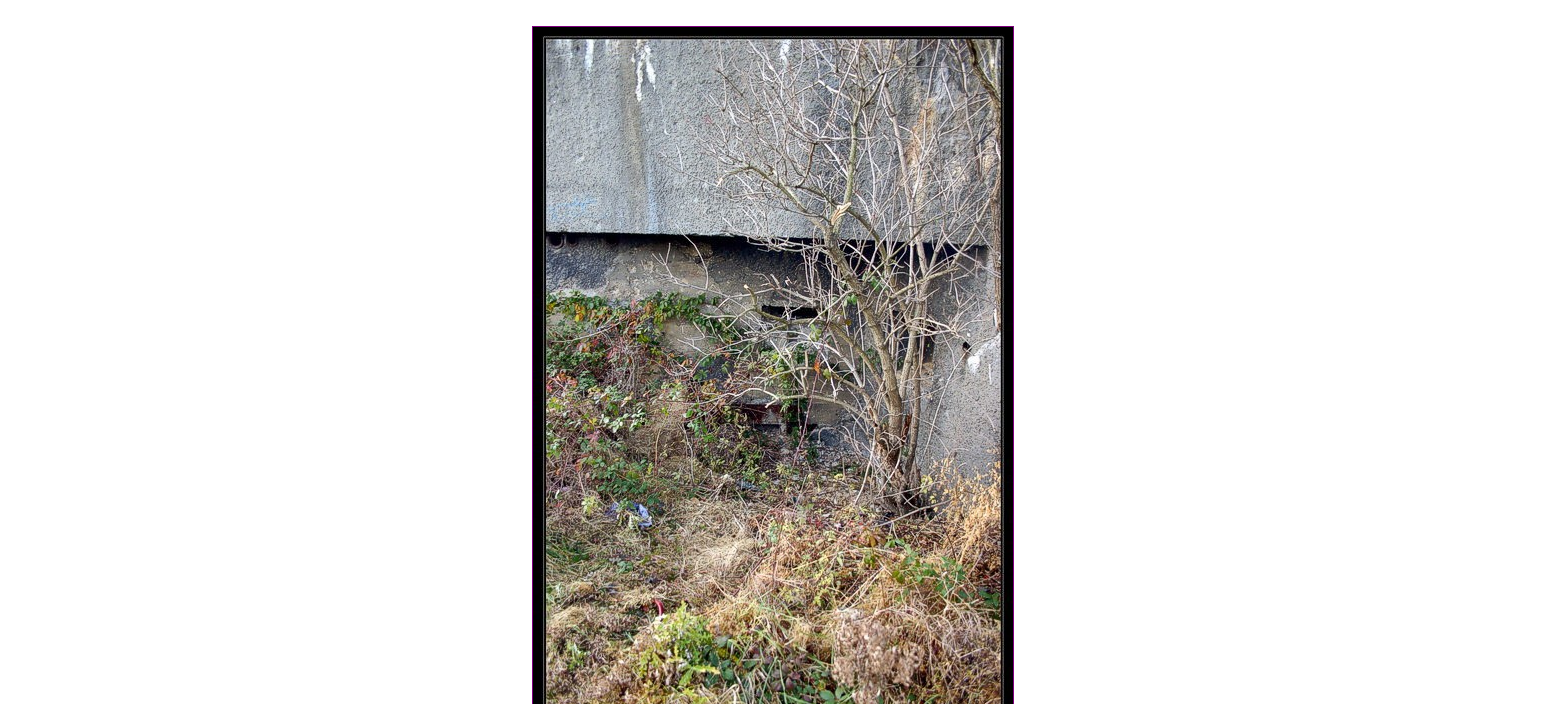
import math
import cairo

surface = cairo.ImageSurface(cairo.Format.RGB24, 1545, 704)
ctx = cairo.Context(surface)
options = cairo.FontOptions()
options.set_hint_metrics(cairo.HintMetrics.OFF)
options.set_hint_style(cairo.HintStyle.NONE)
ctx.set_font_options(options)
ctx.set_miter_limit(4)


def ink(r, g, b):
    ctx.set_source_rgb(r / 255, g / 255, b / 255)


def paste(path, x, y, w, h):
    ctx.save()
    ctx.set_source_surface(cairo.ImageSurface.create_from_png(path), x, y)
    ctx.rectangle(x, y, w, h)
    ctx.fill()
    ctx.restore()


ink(255, 255, 255)
ctx.paint()
ctx.rectangle(532.5, 26.5, 481, 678)
ink(128, 0, 128)
ctx.set_line_width(1)
ctx.stroke()
paste("pic1.png", 533, 27, 480, 677)
surface.write_to_png("screenshot.png")
